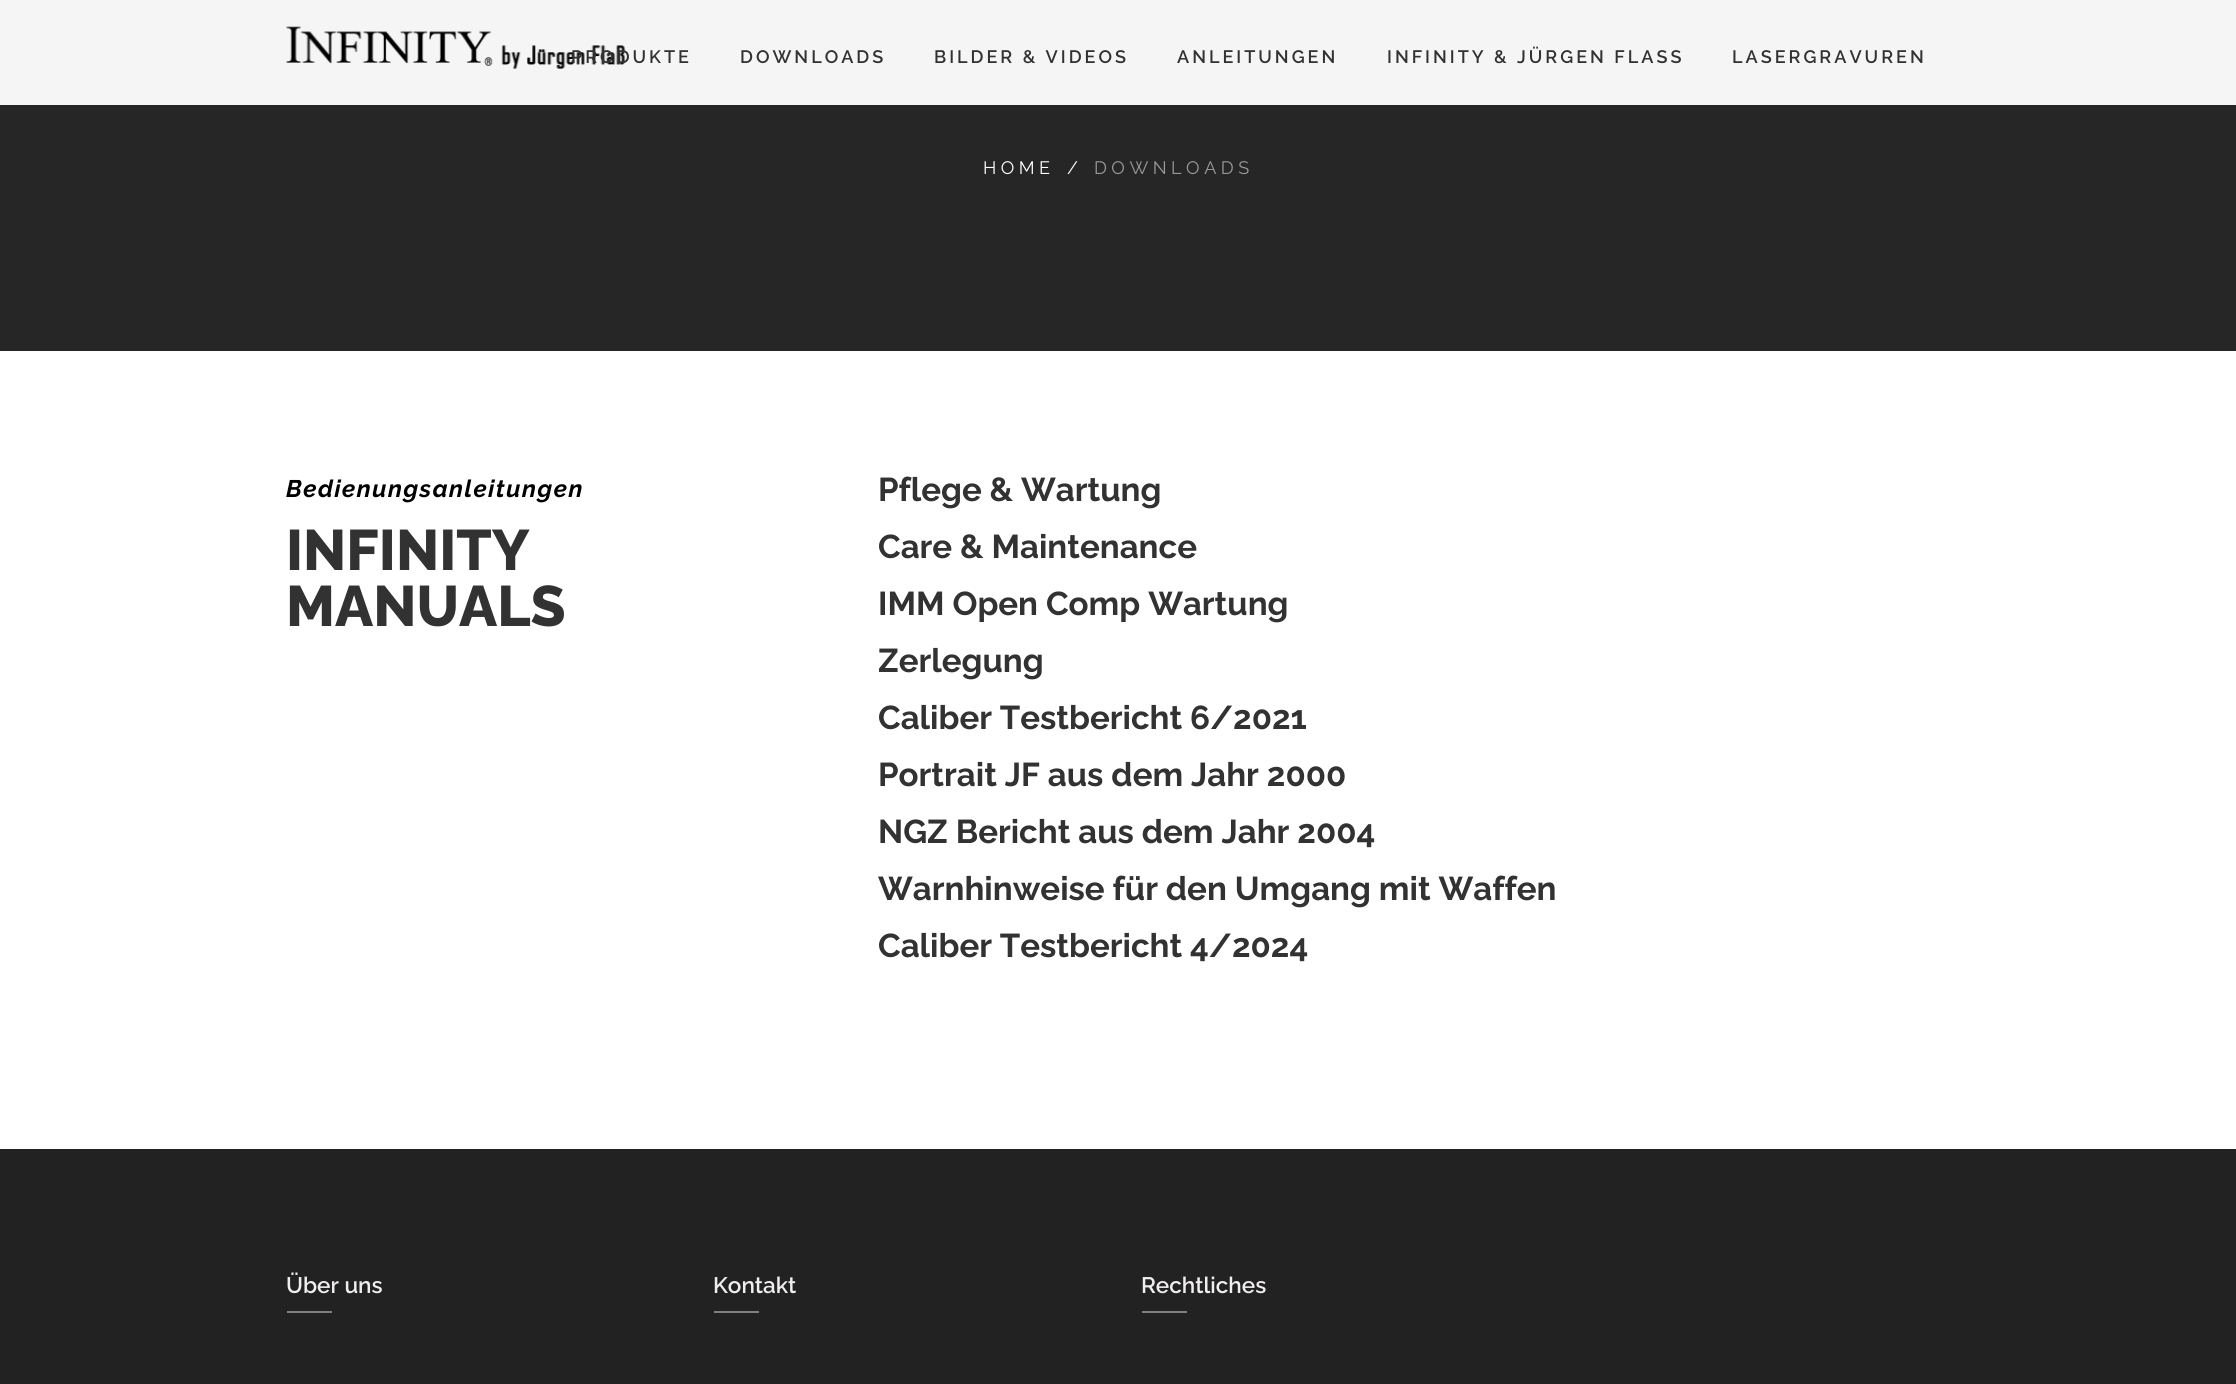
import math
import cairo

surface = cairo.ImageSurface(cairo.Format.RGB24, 2236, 1384)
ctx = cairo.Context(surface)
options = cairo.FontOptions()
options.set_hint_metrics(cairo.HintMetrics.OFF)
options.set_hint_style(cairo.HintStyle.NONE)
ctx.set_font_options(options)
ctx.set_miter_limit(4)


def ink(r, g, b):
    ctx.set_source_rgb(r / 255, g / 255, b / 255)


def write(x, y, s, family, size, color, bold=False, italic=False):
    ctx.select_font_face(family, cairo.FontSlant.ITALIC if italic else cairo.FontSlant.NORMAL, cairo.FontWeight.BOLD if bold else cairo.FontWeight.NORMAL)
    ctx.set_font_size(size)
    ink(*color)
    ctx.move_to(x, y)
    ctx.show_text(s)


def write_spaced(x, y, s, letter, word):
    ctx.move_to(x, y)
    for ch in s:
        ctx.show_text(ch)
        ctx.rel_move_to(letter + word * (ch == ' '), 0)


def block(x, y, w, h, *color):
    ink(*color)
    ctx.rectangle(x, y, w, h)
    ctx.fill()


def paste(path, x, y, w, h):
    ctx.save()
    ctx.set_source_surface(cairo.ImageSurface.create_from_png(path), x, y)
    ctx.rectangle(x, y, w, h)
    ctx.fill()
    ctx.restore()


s1 = dict(family="Raleway ExtraBold", size=57, color=(50, 50, 50))
s2 = dict(family="Raleway", size=33, color=(50, 50, 50), bold=True)
s3 = dict(family="Raleway SemiBold", size=22.5, color=(240, 237, 237))

ink(255, 255, 255)
ctx.paint()
block(0, 0, 2236, 351, 38, 38, 38)
ctx.set_source_rgba(1, 1, 1, 0.95)
ctx.rectangle(0, 0, 2236, 105)
ctx.fill()
paste("pic1.png", 286, 26, 340, 43)
ctx.select_font_face("Raleway SemiBold")
ctx.set_font_size(18)
ink(50, 50, 50)
write_spaced(571, 63, "PRODUKTE", 3, 0)
write_spaced(740, 63, "DOWNLOADS", 3, 0)
write_spaced(934, 63, "BILDER & VIDEOS", 3, 0)
write_spaced(1177, 63, "ANLEITUNGEN", 3, 0)
write_spaced(1387, 63, "INFINITY & JÜRGEN FLASS", 3, 0)
write_spaced(1732, 63, "LASERGRAVUREN", 3, 0)
ctx.select_font_face("Raleway")
ink(255, 255, 255)
write_spaced(983, 174, "HOME", 4.5, 0)
write_spaced(1067, 174, "/", 4.5, 0)
ink(153, 153, 153)
write_spaced(1094, 174, "DOWNLOADS", 4.5, 0)
ctx.select_font_face("Raleway", cairo.FontSlant.ITALIC, cairo.FontWeight.BOLD)
ctx.set_font_size(24)
ink(0, 0, 0)
write_spaced(286, 497, "Bedienungsanleitungen", 1.5, 0)
write(286, 570, "INFINITY", **s1)
write(286, 626, "MANUALS", **s1)
write(878, 501, "Pflege & Wartung", **s2)
write(878, 558, "Care & Maintenance", **s2)
write(878, 615, "IMM Open Comp Wartung", **s2)
write(878, 672, "Zerlegung", **s2)
write(878, 729, "Caliber Testbericht 6/2021", **s2)
write(878, 786, "Portrait JF aus dem Jahr 2000", **s2)
write(878, 843, "NGZ Bericht aus dem Jahr 2004", **s2)
write(878, 900, "Warnhinweise für den Umgang mit Waffen", **s2)
write(878, 957, "Caliber Testbericht 4/2024", **s2)
block(0, 1149, 2236, 235, 34, 34, 34)
write(286, 1293, "Über uns", **s3)
block(287, 1311, 45, 2, 127, 127, 127)
write(713, 1293, "Kontakt", **s3)
block(714, 1311, 45, 2, 127, 127, 127)
write(1141, 1293, "Rechtliches", **s3)
block(1142, 1311, 45, 2, 127, 127, 127)
surface.write_to_png("screenshot.png")
